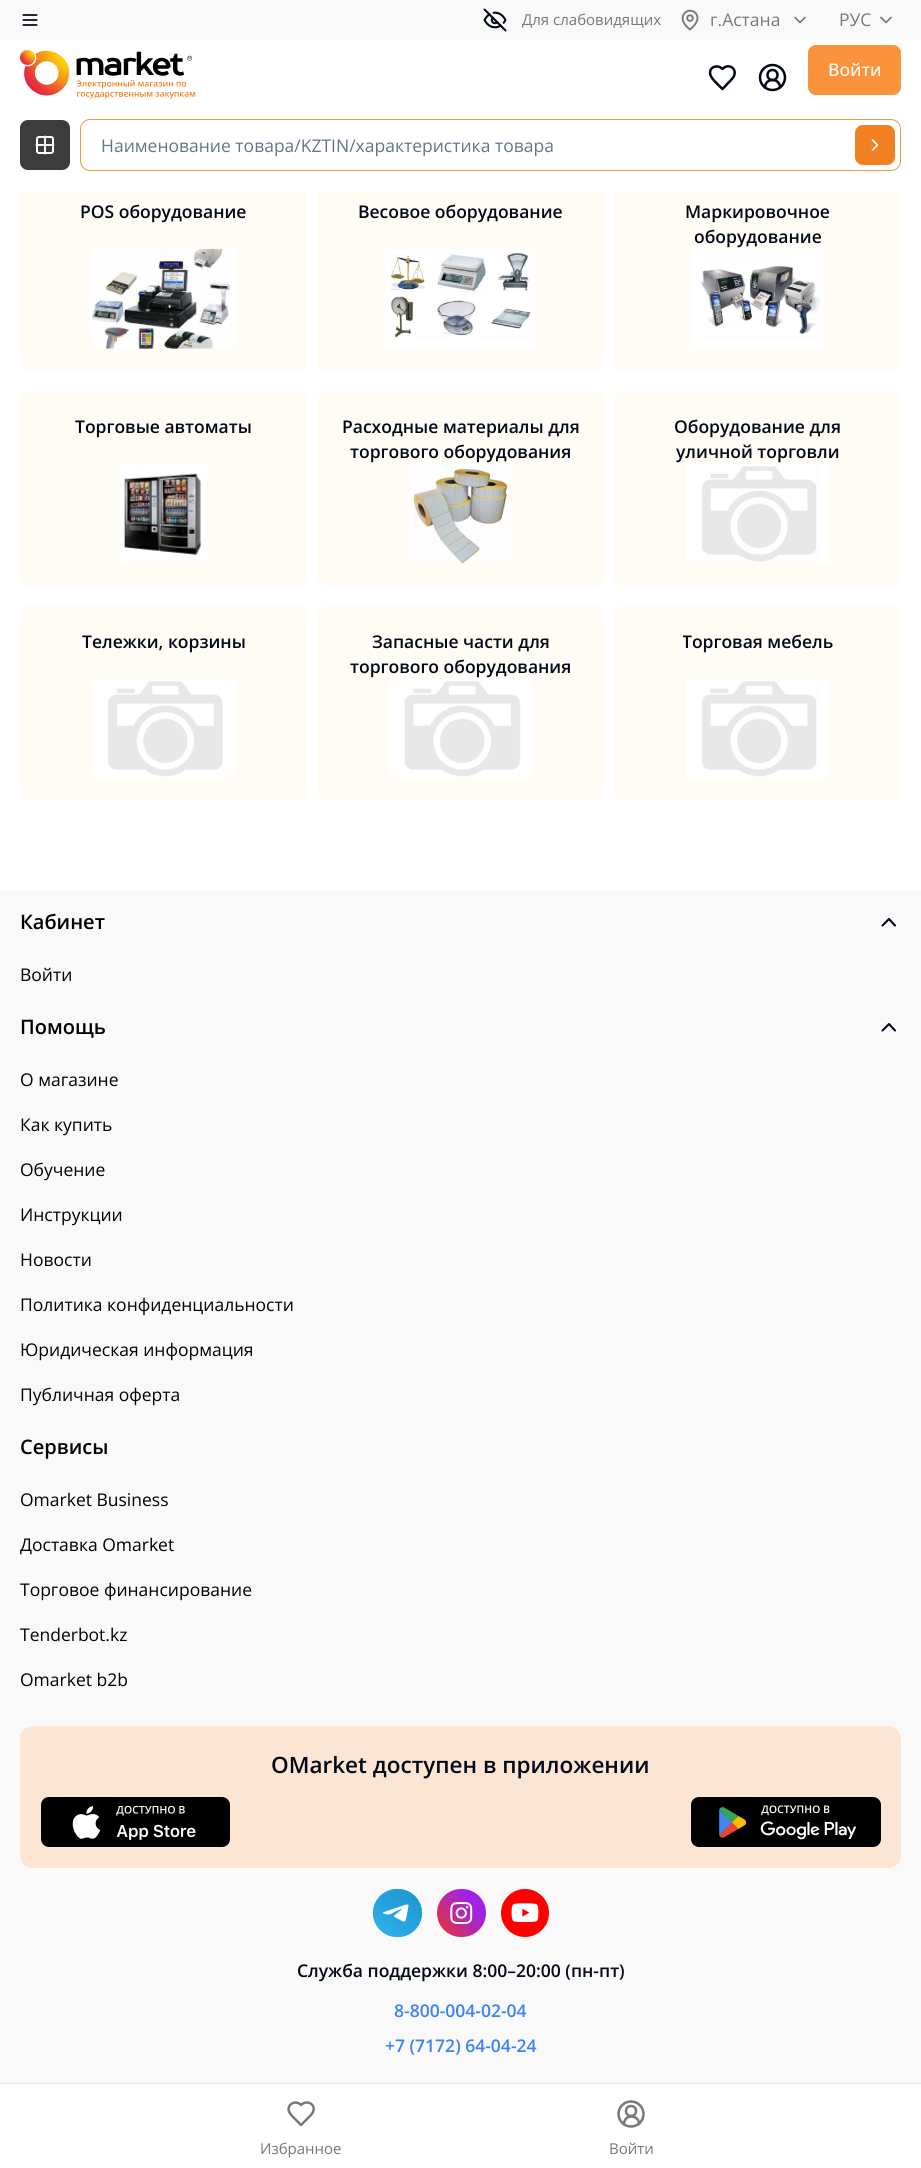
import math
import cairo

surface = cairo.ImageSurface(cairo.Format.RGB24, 921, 2168)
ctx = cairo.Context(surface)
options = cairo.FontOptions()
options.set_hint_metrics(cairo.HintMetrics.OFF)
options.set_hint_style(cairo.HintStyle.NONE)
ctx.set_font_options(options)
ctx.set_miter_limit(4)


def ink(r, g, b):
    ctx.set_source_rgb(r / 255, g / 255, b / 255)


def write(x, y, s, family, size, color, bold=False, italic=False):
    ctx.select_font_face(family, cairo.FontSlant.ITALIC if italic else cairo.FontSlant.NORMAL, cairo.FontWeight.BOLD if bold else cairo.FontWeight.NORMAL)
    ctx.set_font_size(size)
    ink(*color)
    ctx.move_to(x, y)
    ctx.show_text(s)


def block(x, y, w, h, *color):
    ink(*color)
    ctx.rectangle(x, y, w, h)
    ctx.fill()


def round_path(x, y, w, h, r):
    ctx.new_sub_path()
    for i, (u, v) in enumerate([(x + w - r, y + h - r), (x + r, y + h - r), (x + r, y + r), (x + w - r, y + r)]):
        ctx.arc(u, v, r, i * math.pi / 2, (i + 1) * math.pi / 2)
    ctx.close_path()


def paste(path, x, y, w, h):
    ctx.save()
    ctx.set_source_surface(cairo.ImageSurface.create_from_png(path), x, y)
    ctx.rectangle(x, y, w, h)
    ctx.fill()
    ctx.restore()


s1 = dict(family="Open Sans", size=15, color=(120, 120, 120))
s2 = dict(family="Open Sans", size=17.5, color=(120, 120, 120))
s3 = dict(family="Open Sans Medium", size=17.5, color=(255, 255, 255))
s4 = dict(family="Open Sans", size=17.5, color=(100, 116, 139))
s5 = dict(family="Open Sans SemiBold", size=17.5, color=(2, 8, 23))
s6 = dict(family="Open Sans SemiBold", size=20, color=(0, 0, 0))
s7 = dict(family="Open Sans", size=17.5, color=(0, 0, 0))
s8 = dict(family="Open Sans SemiBold", size=22.5, color=(2, 8, 23))
s9 = dict(family="Open Sans SemiBold", size=17.5, color=(59, 130, 246))

ink(255, 255, 255)
ctx.paint()
ink(255, 251, 245)
round_path(20, 176, 288, 195, 8)
ctx.fill()
round_path(318, 176, 286, 195, 8)
ctx.fill()
round_path(614, 176, 287, 195, 8)
ctx.fill()
block(20, 176, 881, 15, 255, 255, 255)
block(0, 0, 921, 40, 250, 249, 249)
paste("pic1.png", 22, 14, 16, 12)
paste("pic2.png", 483, 8, 24, 24)
write(522, 25, "Для слабовидящих", **s1)
ctx.new_path()
ctx.move_to(697.5, 18)
ctx.curve_to(697.5, 24, 690, 29.5, 690, 29.5)
ctx.curve_to(674, 17.5, 688, 5.5, 695.5, 13)
ctx.curve_to(696.5, 14, 697.5, 16, 697.5, 18)
ctx.close_path()
ctx.set_line_width(1.9)
ctx.set_line_cap(cairo.LineCap.ROUND)
ctx.set_line_join(cairo.LineJoin.ROUND)
ctx.stroke()
ctx.arc(690, 18.1, 2.8, 0, 2 * math.pi)
ctx.set_line_cap(cairo.LineCap.BUTT)
ctx.set_line_join(cairo.LineJoin.MITER)
ctx.stroke()
write(710, 26, "г.Астана", **s2)
ctx.new_path()
ctx.move_to(795, 17.5)
ctx.line_to(800, 22.5)
ctx.line_to(805, 17.5)
ctx.set_line_width(1.7)
ctx.set_line_cap(cairo.LineCap.ROUND)
ctx.set_line_join(cairo.LineJoin.ROUND)
ctx.stroke()
write(839, 26, "РУС", **s2)
ctx.new_path()
ctx.move_to(881, 17.5)
ctx.line_to(886, 22.5)
ctx.line_to(891, 17.5)
ctx.stroke()
paste("pic3.png", 20, 50, 176, 49)
ctx.new_path()
ctx.move_to(731, 80)
ctx.curve_to(740.5, 71, 729.5, 61.5, 722.5, 69)
ctx.curve_to(717, 63.5, 708, 67.5, 710.5, 75)
ctx.curve_to(711.5, 79, 719.5, 86, 722.5, 89)
ctx.close_path()
ink(2, 8, 23)
ctx.set_line_width(2.5)
ctx.stroke()
ctx.new_path()
ctx.move_to(780, 87.5)
ctx.curve_to(780, 77.5, 765, 77.5, 765, 87.5)
ctx.stroke()
ctx.arc(772.5, 75, 5, 0, 2 * math.pi)
ctx.set_line_cap(cairo.LineCap.BUTT)
ctx.set_line_join(cairo.LineJoin.MITER)
ctx.stroke()
ctx.arc(772.5, 77.5, 12.5, 0, 2 * math.pi)
ctx.stroke()
ink(251, 146, 60)
round_path(808, 45, 93, 50, 8)
ctx.fill()
write(828, 76, "Войти", **s3)
ink(60, 60, 60)
round_path(20, 120, 50, 50, 8)
ctx.fill()
round_path(37, 137, 16, 16, 2)
ink(255, 255, 255)
ctx.set_line_width(2)
ctx.stroke()
ctx.new_path()
ctx.move_to(36.5, 145)
ctx.line_to(53.5, 145)
ctx.move_to(45, 136.5)
ctx.line_to(45, 153.5)
ctx.set_line_width(1.9)
ctx.set_line_cap(cairo.LineCap.ROUND)
ctx.set_line_join(cairo.LineJoin.ROUND)
ctx.stroke()
round_path(80.5, 119.5, 820, 51, 9.5)
ink(241, 155, 56)
ctx.set_line_width(1)
ctx.set_line_cap(cairo.LineCap.BUTT)
ctx.set_line_join(cairo.LineJoin.MITER)
ctx.stroke()
write(101, 152, "Наименование товара/KZTIN/характеристика товара", **s4)
ink(241, 128, 33)
round_path(855, 125, 40, 40, 8)
ctx.fill()
ctx.new_path()
ctx.move_to(872.5, 150)
ctx.line_to(877.5, 145)
ctx.line_to(872.5, 140)
ink(255, 255, 255)
ctx.set_line_width(1.7)
ctx.set_line_cap(cairo.LineCap.ROUND)
ctx.set_line_join(cairo.LineJoin.ROUND)
ctx.stroke()
write(80, 218, "POS оборудование", **s5)
paste("pic4.png", 91, 248, 145, 101)
write(358, 218, "Весовое оборудование", **s5)
paste("pic5.png", 385, 249, 150, 100)
write(685, 218, "Маркировочное", **s5)
write(694, 243, "оборудование", **s5)
paste("pic6.png", 691, 249, 133, 100)
ink(255, 251, 245)
round_path(20, 391, 288, 195, 8)
ctx.fill()
write(75, 433, "Торговые автоматы", **s5)
paste("pic7.png", 119, 464, 89, 100)
ink(255, 251, 245)
round_path(318, 391, 286, 195, 8)
ctx.fill()
write(342, 433, "Расходные материалы для", **s5)
write(350, 458, "торгового оборудования", **s5)
paste("pic8.png", 410, 464, 100, 100)
ink(255, 251, 245)
round_path(614, 391, 287, 195, 8)
ctx.fill()
write(674, 433, "Оборудование для", **s5)
write(676, 458, "уличной торговли", **s5)
paste("pic9.png", 686, 464, 143, 100)
ink(255, 251, 245)
round_path(20, 606, 288, 195, 8)
ctx.fill()
write(82, 648, "Тележки, корзины", **s5)
paste("pic10.png", 92, 679, 143, 100)
ink(255, 251, 245)
round_path(318, 606, 286, 195, 8)
ctx.fill()
write(372, 648, "Запасные части для", **s5)
write(350, 673, "торгового оборудования", **s5)
paste("pic11.png", 389, 679, 144, 100)
ink(255, 251, 245)
round_path(614, 606, 287, 195, 8)
ctx.fill()
ctx.save()
ctx.rectangle(683, 629, 151, 25)
ctx.clip()
write(682, 648, "Торговая мебель", **s5)
ctx.restore()
paste("pic9.png", 686, 679, 143, 100)
block(0, 891, 921, 1192, 250, 249, 249)
write(20, 929, "Кабинет", **s6)
ctx.new_path()
ctx.move_to(895, 925.5)
ctx.line_to(889, 919)
ctx.line_to(882.5, 925.5)
ink(2, 8, 23)
ctx.set_line_width(2.1)
ctx.stroke()
write(20, 981, "Войти", **s7)
write(20, 1034, "Помощь", **s6)
ctx.new_path()
ctx.move_to(895, 1030.5)
ctx.line_to(889, 1024)
ctx.line_to(882.5, 1030.5)
ink(2, 8, 23)
ctx.stroke()
write(20, 1086, "О магазине", **s7)
write(20, 1131, "Как купить", **s7)
write(20, 1176, "Обучение", **s7)
write(20, 1221, "Инструкции", **s7)
write(20, 1266, "Новости", **s7)
write(20, 1311, "Политика конфиденциальности", **s7)
write(20, 1356, "Юридическая информация", **s7)
write(20, 1401, "Публичная оферта", **s7)
write(20, 1454, "Сервисы", **s6)
write(20, 1506, "Omarket Business", **s7)
write(20, 1551, "Доставка Omarket", **s7)
write(20, 1596, "Торговое финансирование", **s7)
write(20, 1641, "Tenderbot.kz", **s7)
write(20, 1686, "Omarket b2b", **s7)
ink(252, 230, 211)
round_path(20, 1726, 881, 142, 13)
ctx.fill()
write(271, 1773, "OMarket доступен в приложении", **s8)
paste("pic12.png", 41, 1797, 189, 50)
paste("pic13.png", 691, 1797, 190, 50)
paste("pic14.png", 373, 1889, 49, 48)
paste("pic15.png", 437, 1889, 49, 48)
paste("pic16.png", 501, 1889, 48, 48)
write(297, 1977, "Cлужба поддержки 8:00–20:00 (пн-пт)", **s5)
write(394, 2017, "8-800-004-02-04", **s9)
write(385, 2052, "+7 (7172) 64-04-24", **s9)
block(0, 2083, 921, 1, 229, 229, 229)
ctx.new_path()
ctx.move_to(310, 2116)
ctx.curve_to(319.5, 2107, 308.5, 2098, 301, 2105)
ctx.curve_to(296, 2099.5, 286.5, 2104, 289, 2111.5)
ctx.curve_to(290.5, 2115.5, 298.5, 2122, 301, 2125)
ctx.close_path()
ink(120, 120, 120)
ctx.set_line_width(2.5)
ctx.stroke()
write(260, 2154, "Избранное", **s1)
ctx.new_path()
ctx.move_to(639, 2124)
ctx.curve_to(639, 2114, 624, 2114, 624, 2124)
ctx.stroke()
ctx.arc(631, 2111, 5, 0, 2 * math.pi)
ctx.set_line_cap(cairo.LineCap.BUTT)
ctx.set_line_join(cairo.LineJoin.MITER)
ctx.stroke()
ctx.arc(631, 2114, 12.5, 0, 2 * math.pi)
ctx.stroke()
write(609, 2154, "Войти", **s1)
surface.write_to_png("screenshot.png")
